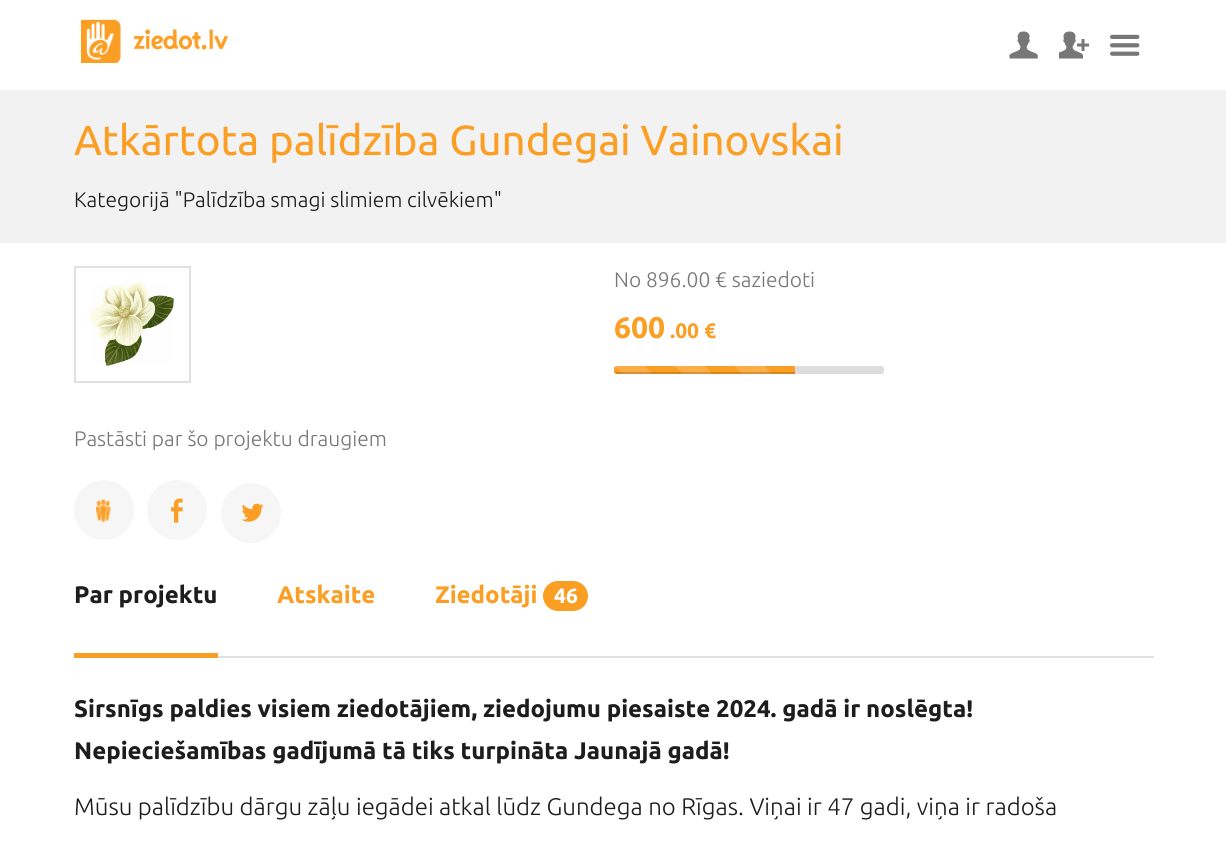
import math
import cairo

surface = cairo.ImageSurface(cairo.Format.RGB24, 1226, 845)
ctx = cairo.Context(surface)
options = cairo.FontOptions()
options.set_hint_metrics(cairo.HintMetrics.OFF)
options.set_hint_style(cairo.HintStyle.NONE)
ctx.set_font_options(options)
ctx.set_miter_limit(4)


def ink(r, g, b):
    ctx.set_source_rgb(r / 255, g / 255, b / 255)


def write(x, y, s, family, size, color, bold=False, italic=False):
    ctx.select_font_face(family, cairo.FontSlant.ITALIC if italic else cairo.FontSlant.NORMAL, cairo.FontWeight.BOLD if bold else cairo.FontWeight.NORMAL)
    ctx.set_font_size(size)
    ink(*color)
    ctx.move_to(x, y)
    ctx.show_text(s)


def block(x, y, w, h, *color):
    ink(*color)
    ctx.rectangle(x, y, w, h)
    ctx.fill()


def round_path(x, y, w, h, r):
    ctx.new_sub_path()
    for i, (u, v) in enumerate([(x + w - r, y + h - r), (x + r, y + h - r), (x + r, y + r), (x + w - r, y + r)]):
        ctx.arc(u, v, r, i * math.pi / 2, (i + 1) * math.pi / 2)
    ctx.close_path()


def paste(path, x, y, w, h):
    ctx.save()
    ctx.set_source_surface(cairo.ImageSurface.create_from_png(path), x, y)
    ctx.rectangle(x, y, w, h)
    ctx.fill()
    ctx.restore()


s1 = dict(family="Ubuntu", size=42, color=(251, 158, 36))
s2 = dict(family="Ubuntu Light", size=21, color=(29, 29, 29))
s3 = dict(family="Ubuntu Light", size=21, color=(119, 119, 119))
s4 = dict(family="Ubuntu", size=30, color=(251, 158, 36), bold=True)
s5 = dict(family="Ubuntu", size=21, color=(251, 158, 36), bold=True)
s6 = dict(family="Ubuntu", size=24, color=(29, 29, 29), bold=True)
s7 = dict(family="Ubuntu", size=24, color=(251, 158, 36), bold=True)
s8 = dict(family="Ubuntu", size=21, color=(255, 255, 255), bold=True)
s9 = dict(family="Ubuntu Light", size=24, color=(29, 29, 29))

ink(255, 255, 255)
ctx.paint()
paste("pic1.png", 81, 19, 147, 44)
paste("pic2.png", 1009, 31, 29, 28)
paste("pic3.png", 1059, 31, 30, 28)
paste("pic4.png", 1110, 34, 30, 22)
block(0, 90, 1226, 153, 242, 242, 242)
write(74, 155, "Atkārtota palīdzība Gundegai Vainovskai", **s1)
write(74, 207, "Kategorijā \"Palīdzība smagi slimiem cilvēkiem\"", **s2)
ctx.rectangle(75, 267, 115, 115)
ink(225, 225, 225)
ctx.stroke()
paste("pic5.png", 90, 282, 84, 84)
write(614, 287, "No 896.00 € saziedoti", **s3)
write(614, 338, "600", **s4)
write(670, 338, ".00 €", **s5)
ink(221, 221, 221)
round_path(614, 366, 270, 8, 3)
ctx.fill()
ink(251, 158, 36)
ctx.new_path()
ctx.move_to(617, 366)
ctx.line_to(795, 366)
ctx.line_to(795, 374)
ctx.line_to(617, 374)
ctx.curve_to(615.5, 374, 614, 372.5, 614, 371)
ctx.line_to(614, 369)
ctx.curve_to(614, 367.5, 615.5, 366, 617, 366)
ctx.close_path()
ctx.fill()
gradient = cairo.LinearGradient(614, 426, 674, 366)
gradient.add_color_stop_rgba(0.25, 1, 1, 1, 0.15)
gradient.add_color_stop_rgba(0.25, 1, 1, 1, 0)
gradient.add_color_stop_rgba(0.5, 1, 1, 1, 0)
gradient.add_color_stop_rgba(0.5, 1, 1, 1, 0.15)
gradient.add_color_stop_rgba(0.75, 1, 1, 1, 0.15)
gradient.add_color_stop_rgba(0.75, 1, 1, 1, 0)
gradient.add_color_stop_rgba(1, 0, 0, 0, 0)
ctx.set_source(gradient)
ctx.new_path()
ctx.move_to(617, 366)
ctx.line_to(674, 366)
ctx.line_to(674, 374)
ctx.line_to(617, 374)
ctx.curve_to(615.5, 374, 614, 372.5, 614, 371)
ctx.line_to(614, 369)
ctx.curve_to(614, 367.5, 615.5, 366, 617, 366)
ctx.close_path()
ctx.fill()
gradient = cairo.LinearGradient(674, 426, 734, 366)
gradient.add_color_stop_rgba(0.25, 0.988, 0.678, 0.271, 1)
gradient.add_color_stop_rgba(0.25, 0.984, 0.62, 0.141, 1)
gradient.add_color_stop_rgba(0.5, 0.984, 0.62, 0.141, 1)
gradient.add_color_stop_rgba(0.5, 0.988, 0.678, 0.271, 1)
gradient.add_color_stop_rgba(0.75, 0.988, 0.678, 0.271, 1)
gradient.add_color_stop_rgba(0.75, 0.984, 0.62, 0.141, 1)
gradient.add_color_stop_rgba(1, 0.984, 0.62, 0.141, 1)
ctx.set_source(gradient)
ctx.rectangle(674, 366, 38, 8)
ctx.fill()
gradient = cairo.LinearGradient(734, 426, 794, 366)
gradient.add_color_stop_rgba(0.25, 0.988, 0.678, 0.271, 1)
gradient.add_color_stop_rgba(0.25, 0.984, 0.62, 0.141, 1)
gradient.add_color_stop_rgba(0.5, 0.984, 0.62, 0.141, 1)
gradient.add_color_stop_rgba(0.5, 0.988, 0.678, 0.271, 1)
gradient.add_color_stop_rgba(0.75, 0.988, 0.678, 0.271, 1)
gradient.add_color_stop_rgba(0.75, 0.984, 0.62, 0.141, 1)
gradient.add_color_stop_rgba(1, 0.984, 0.62, 0.141, 1)
ctx.set_source(gradient)
ctx.rectangle(734, 366, 38, 8)
ctx.fill()
gradient = cairo.LinearGradient(794, 426, 854, 366)
gradient.add_color_stop_rgba(0.25, 0.988, 0.678, 0.271, 1)
gradient.add_color_stop_rgba(0.25, 0.984, 0.62, 0.141, 1)
gradient.add_color_stop_rgba(0.5, 0.984, 0.62, 0.141, 1)
gradient.add_color_stop_rgba(0.5, 0.988, 0.678, 0.271, 1)
gradient.add_color_stop_rgba(0.75, 0.988, 0.678, 0.271, 1)
gradient.add_color_stop_rgba(0.75, 0.984, 0.62, 0.141, 1)
gradient.add_color_stop_rgba(1, 0.984, 0.62, 0.141, 1)
ctx.set_source(gradient)
ctx.rectangle(794, 366, 1, 8)
ctx.fill()
ctx.save()
round_path(614, 366, 270, 8, 3)
ctx.clip()
ctx.set_source_rgba(0, 0, 0, 0.15)
ctx.rectangle(614, 372, 181, 2)
ctx.fill()
ctx.restore()
write(74, 446, "Pastāsti par šo projektu draugiem", **s3)
ink(246, 246, 246)
ctx.new_path()
ctx.arc(104, 510, 30, 0, 2 * math.pi)
ctx.fill()
paste("pic6.png", 96, 499, 15, 23)
ctx.arc(177, 510, 30, 0, 2 * math.pi)
ctx.fill()
paste("pic7.png", 171, 498, 12, 25)
ctx.arc(251, 513, 30, 0, 2 * math.pi)
ctx.fill()
paste("pic8.png", 241, 503, 23, 19)
block(218, 656, 936, 2, 225, 225, 225)
block(74, 653, 144, 5, 251, 158, 36)
write(74, 603, "Par projektu", **s6)
write(277, 603, "Atskaite", **s7)
write(435, 603, "Ziedotāji", **s7)
round_path(543, 581, 45, 30, 15)
ctx.fill()
write(554, 603, "46", **s8)
write(74, 717, "Sirsnīgs paldies visiem ziedotājiem, ziedojumu piesaiste 2024. gadā ir noslēgta!", **s6)
write(74, 759, "Nepieciešamības gadījumā tā tiks turpināta Jaunajā gadā!", **s6)
write(74, 815, "Mūsu palīdzību dārgu zāļu iegādei atkal lūdz Gundega no Rīgas. Viņai ir 47 gadi, viņa ir radoša", **s9)
surface.write_to_png("screenshot.png")
